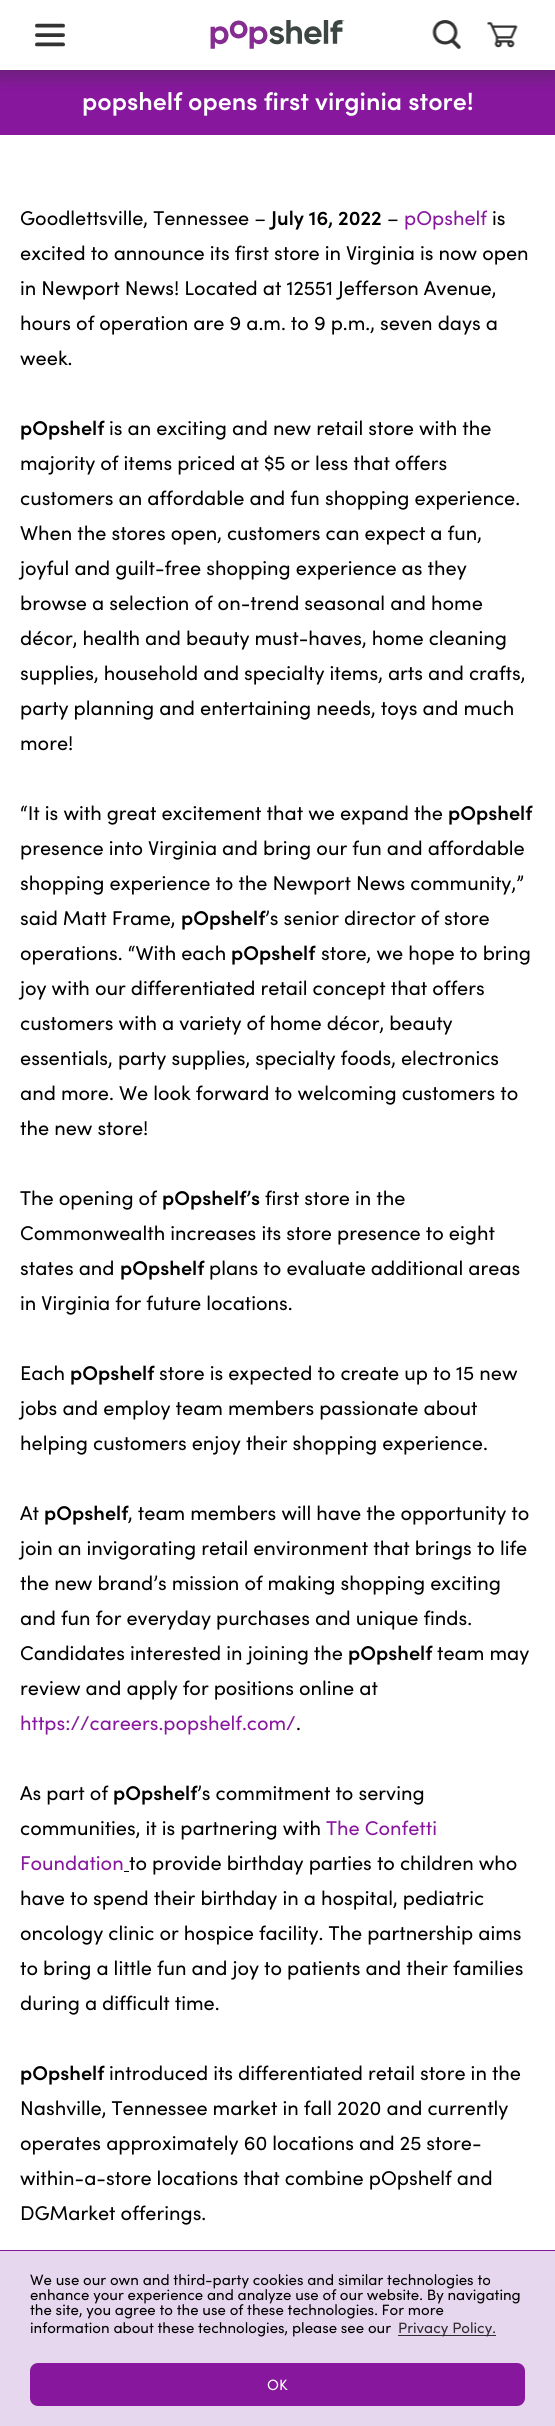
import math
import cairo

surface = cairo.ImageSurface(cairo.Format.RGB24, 555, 2426)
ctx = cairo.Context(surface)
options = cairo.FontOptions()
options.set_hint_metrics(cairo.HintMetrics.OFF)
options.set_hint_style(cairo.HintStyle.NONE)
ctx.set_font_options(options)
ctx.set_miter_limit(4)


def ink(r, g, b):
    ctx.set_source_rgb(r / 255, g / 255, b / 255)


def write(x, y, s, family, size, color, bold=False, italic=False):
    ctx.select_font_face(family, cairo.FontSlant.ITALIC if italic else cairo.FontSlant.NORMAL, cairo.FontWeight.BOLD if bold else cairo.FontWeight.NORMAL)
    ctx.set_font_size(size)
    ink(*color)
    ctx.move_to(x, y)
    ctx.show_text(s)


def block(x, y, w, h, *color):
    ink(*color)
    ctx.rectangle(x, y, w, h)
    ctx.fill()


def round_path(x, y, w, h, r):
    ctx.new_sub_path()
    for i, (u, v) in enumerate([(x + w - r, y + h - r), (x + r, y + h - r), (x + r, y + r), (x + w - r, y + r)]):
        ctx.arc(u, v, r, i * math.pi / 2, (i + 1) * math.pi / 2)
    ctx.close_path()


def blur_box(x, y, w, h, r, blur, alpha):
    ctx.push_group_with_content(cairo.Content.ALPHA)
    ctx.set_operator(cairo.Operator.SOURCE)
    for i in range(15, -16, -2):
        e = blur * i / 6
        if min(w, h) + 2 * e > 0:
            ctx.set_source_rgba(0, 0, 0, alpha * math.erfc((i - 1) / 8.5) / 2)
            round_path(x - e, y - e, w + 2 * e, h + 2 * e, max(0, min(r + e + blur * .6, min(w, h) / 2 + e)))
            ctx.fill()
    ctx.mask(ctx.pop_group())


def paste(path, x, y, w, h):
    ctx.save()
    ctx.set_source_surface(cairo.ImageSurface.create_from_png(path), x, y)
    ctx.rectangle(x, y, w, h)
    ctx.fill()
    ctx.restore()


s1 = dict(family="Sofia SemiBold", size=25, color=(255, 255, 255))
s2 = dict(family="Sofia", size=20, color=(0, 0, 0))
s3 = dict(family="Sofia SemiBold", size=20, color=(0, 0, 0))
s4 = dict(family="Sofia", size=20, color=(135, 24, 157))
s5 = dict(family="Sofia", size=15, color=(0, 0, 0))
s6 = dict(family="Sofia", size=15, color=(46, 42, 47))
s7 = dict(family="Sofia", size=15, color=(255, 255, 255))

ink(255, 255, 255)
ctx.paint()
block(0, 2251, 555, 175, 230, 214, 238)
block(0, 70, 555, 65, 135, 24, 157)
ctx.save()
ctx.rectangle(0, 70, 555, 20)
ctx.clip()
ink(50, 50, 50)
blur_box(0, 3, 555, 70, 0, 10, 0.5)
ctx.restore()
paste("pic1.png", 35, 23, 30, 24)
paste("pic2.png", 210, 20, 135, 29)
paste("pic3.png", 432, 20, 30, 29)
paste("pic4.png", 487, 22, 31, 26)
write(82, 110, "popshelf opens first virginia store!", **s1)
write(20, 225, "Goodlettsville, Tennessee –", **s2)
write(271, 225, "July 16, 2022", **s3)
write(387, 225, "–", **s2)
write(404, 225, "pOpshelf", **s4)
write(492, 225, "is", **s2)
write(20, 260, "excited to announce its first store in Virginia is now open", **s2)
write(20, 295, "in Newport News! Located at 12551 Jefferson Avenue,", **s2)
write(20, 330, "hours of operation are 9 a.m. to 9 p.m., seven days a", **s2)
write(20, 365, "week.", **s2)
write(20, 435, "pOpshelf", **s3)
write(109, 435, "is an exciting and new retail store with the", **s2)
write(20, 470, "majority of items priced at $5 or less that offers", **s2)
write(20, 505, "customers an affordable and fun shopping experience.", **s2)
write(20, 540, "When the stores open, customers can expect a fun,", **s2)
write(20, 575, "joyful and guilt-free shopping experience as they", **s2)
write(20, 610, "browse a selection of on-trend seasonal and home", **s2)
write(20, 645, "décor, health and beauty must-haves, home cleaning", **s2)
write(20, 680, "supplies, household and specialty items, arts and crafts,", **s2)
write(20, 715, "party planning and entertaining needs, toys and much", **s2)
write(20, 750, "more!", **s2)
write(20, 820, "“It is with great excitement that we expand the", **s2)
write(448, 820, "pOpshelf", **s3)
write(20, 855, "presence into Virginia and bring our fun and affordable", **s2)
write(20, 890, "shopping experience to the Newport News community,”", **s2)
write(20, 925, "said Matt Frame,", **s2)
write(181, 925, "pOpshelf", **s3)
write(265, 925, "’s senior director of store", **s2)
write(20, 960, "operations. “With each", **s2)
write(231, 960, "pOpshelf", **s3)
write(321, 960, "store, we hope to bring", **s2)
write(20, 995, "joy with our differentiated retail concept that offers", **s2)
write(20, 1030, "customers with a variety of home décor, beauty", **s2)
write(20, 1065, "essentials, party supplies, specialty foods, electronics", **s2)
write(20, 1100, "and more. We look forward to welcoming customers to", **s2)
write(20, 1135, "the new store!", **s2)
write(20, 1205, "The opening of", **s2)
write(162, 1205, "pOpshelf’s", **s3)
write(265, 1205, "first store in the", **s2)
write(20, 1240, "Commonwealth increases its store presence to eight", **s2)
write(20, 1275, "states and", **s2)
write(120, 1275, "pOpshelf", **s3)
write(209, 1275, "plans to evaluate additional areas", **s2)
write(20, 1310, "in Virginia for future locations.", **s2)
write(20, 1380, "Each", **s2)
write(70, 1380, "pOpshelf", **s3)
write(159, 1380, "store is expected to create up to 15 new", **s2)
write(20, 1415, "jobs and employ team members passionate about", **s2)
write(20, 1450, "helping customers enjoy their shopping experience.", **s2)
write(20, 1520, "At", **s2)
write(44, 1520, "pOpshelf", **s3)
write(128, 1520, ", team members will have the opportunity to", **s2)
write(20, 1555, "join an invigorating retail environment that brings to life", **s2)
write(20, 1590, "the new brand’s mission of making shopping exciting", **s2)
write(20, 1625, "and fun for everyday purchases and unique finds.", **s2)
write(20, 1660, "Candidates interested in joining the", **s2)
write(348, 1660, "pOpshelf", **s3)
write(437, 1660, "team may", **s2)
write(20, 1695, "review and apply for positions online at", **s2)
write(20, 1730, "https://careers.popshelf.com/", **s4)
write(296, 1730, ".", **s2)
write(20, 1800, "As part of", **s2)
write(113, 1800, "pOpshelf", **s3)
write(197, 1800, "’s commitment to serving", **s2)
write(20, 1835, "communities, it is partnering with", **s2)
write(326, 1835, "The Confetti", **s4)
write(20, 1870, "Foundation", **s4)
block(124, 1871, 5, 1, 0, 0, 0)
write(129, 1870, "to provide birthday parties to children who", **s2)
write(20, 1905, "have to spend their birthday in a hospital, pediatric", **s2)
write(20, 1940, "oncology clinic or hospice facility. The partnership aims", **s2)
write(20, 1975, "to bring a little fun and joy to patients and their families", **s2)
write(20, 2010, "during a difficult time.", **s2)
write(20, 2080, "pOpshelf", **s3)
write(109, 2080, "introduced its differentiated retail store in the", **s2)
write(20, 2115, "Nashville, Tennessee market in fall 2020 and currently", **s2)
write(20, 2150, "operates approximately 60 locations and 25 store-", **s2)
write(20, 2185, "within-a-store locations that combine pOpshelf and", **s2)
write(20, 2220, "DGMarket offerings.", **s2)
block(0, 2250, 555, 1, 135, 24, 157)
write(30, 2285, "We use our own and third-party cookies and similar technologies to", **s5)
write(30, 2300, "enhance your experience and analyze use of our website. By navigating", **s5)
write(30, 2315, "the site, you agree to the use of these technologies. For more", **s5)
write(30, 2333, "information about these technologies, please see our", **s5)
block(398, 2335, 98, 1, 46, 43, 48)
write(398, 2333, "Privacy Policy.", **s6)
ink(135, 24, 157)
round_path(30, 2363, 495, 43, 8)
ctx.fill()
write(267, 2390, "OK", **s7)
surface.write_to_png("screenshot.png")
